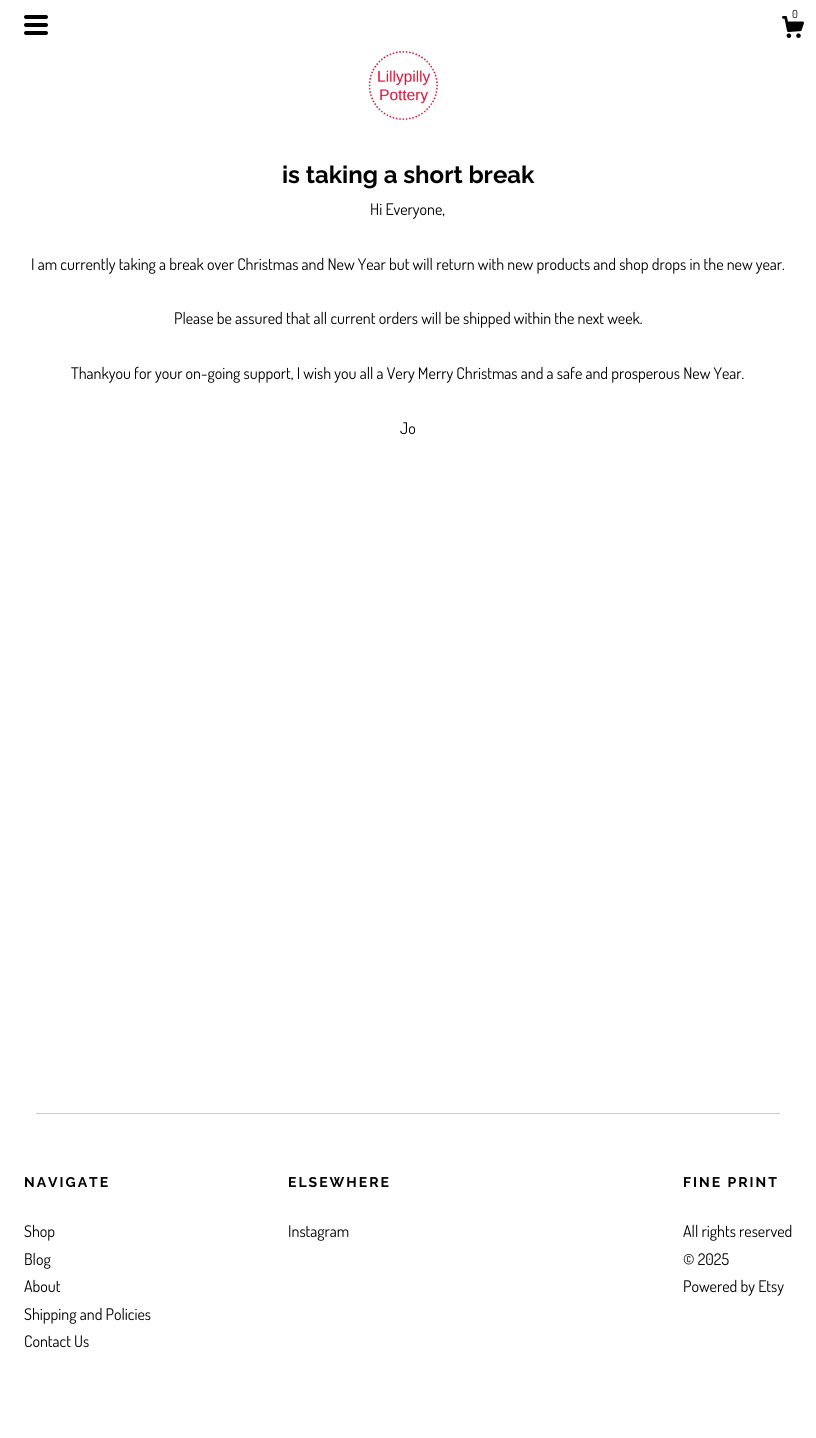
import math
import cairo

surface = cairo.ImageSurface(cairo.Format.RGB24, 816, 1438)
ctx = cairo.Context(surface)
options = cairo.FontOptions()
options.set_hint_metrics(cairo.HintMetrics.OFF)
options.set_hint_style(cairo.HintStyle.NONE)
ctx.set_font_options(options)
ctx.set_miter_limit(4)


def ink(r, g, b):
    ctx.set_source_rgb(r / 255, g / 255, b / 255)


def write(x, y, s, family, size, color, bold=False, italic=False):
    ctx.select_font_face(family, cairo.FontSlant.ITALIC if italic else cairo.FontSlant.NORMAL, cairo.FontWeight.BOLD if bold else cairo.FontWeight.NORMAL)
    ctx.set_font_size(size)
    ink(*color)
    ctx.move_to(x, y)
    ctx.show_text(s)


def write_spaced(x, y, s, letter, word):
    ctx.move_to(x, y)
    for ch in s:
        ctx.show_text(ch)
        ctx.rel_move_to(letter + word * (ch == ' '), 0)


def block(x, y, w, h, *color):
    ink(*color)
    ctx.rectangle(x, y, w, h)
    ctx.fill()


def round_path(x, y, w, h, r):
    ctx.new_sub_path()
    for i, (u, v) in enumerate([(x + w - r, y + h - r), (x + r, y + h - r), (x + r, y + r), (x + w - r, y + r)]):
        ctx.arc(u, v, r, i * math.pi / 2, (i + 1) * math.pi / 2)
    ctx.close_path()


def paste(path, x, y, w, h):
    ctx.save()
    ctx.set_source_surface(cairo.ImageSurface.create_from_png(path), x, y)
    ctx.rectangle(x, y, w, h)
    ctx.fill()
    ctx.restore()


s1 = dict(family="Dosis", size=11, color=(0, 0, 0))
s2 = dict(family="Raleway", size=24, color=(0, 0, 0), bold=True)
s3 = dict(family="Dosis", size=16, color=(0, 0, 0))

ink(255, 255, 255)
ctx.paint()
paste("pic1.png", 782, 16, 22, 22)
write(792, 18, "0", **s1)
round_path(24, 15, 24, 4, 2)
ctx.fill()
round_path(24, 23, 24, 4, 2)
ctx.fill()
round_path(24, 31, 24, 4, 2)
ctx.fill()
paste("pic2.png", 368, 50, 71, 71)
write(282, 183, "is taking a short break", **s2)
write(370, 215, "Hi Everyone,", **s3)
write(31, 270, "I am currently taking a break over Christmas and New Year but will return with new products and shop drops in the new year.", **s3)
write(174, 324, "Please be assured that all current orders will be shipped within the next week.", **s3)
write(71, 379, "Thankyou for your on-going support, I wish you all a Very Merry Christmas and a safe and prosperous New Year.", **s3)
write(400, 434, "Jo", **s3)
block(36, 1113, 744, 1, 204, 204, 204)
ctx.select_font_face("Raleway", cairo.FontSlant.NORMAL, cairo.FontWeight.BOLD)
ctx.set_font_size(14)
ink(0, 0, 0)
write_spaced(24, 1187, "NAVIGATE", 2, 0)
write(24, 1237, "Shop", **s3)
write(24, 1265, "Blog", **s3)
write(24, 1292, "About", **s3)
write(24, 1320, "Shipping and Policies", **s3)
write(24, 1347, "Contact Us", **s3)
ctx.select_font_face("Raleway", cairo.FontSlant.NORMAL, cairo.FontWeight.BOLD)
ctx.set_font_size(14)
write_spaced(288, 1187, "ELSEWHERE", 2, 0)
write(288, 1237, "Instagram", **s3)
ctx.select_font_face("Raleway", cairo.FontSlant.NORMAL, cairo.FontWeight.BOLD)
ctx.set_font_size(14)
write_spaced(683, 1187, "FINE PRINT", 2, 0)
write(683, 1237, "All rights reserved", **s3)
write(683, 1265, "© 2025", **s3)
write(683, 1292, "Powered by Etsy", **s3)
surface.write_to_png("screenshot.png")
